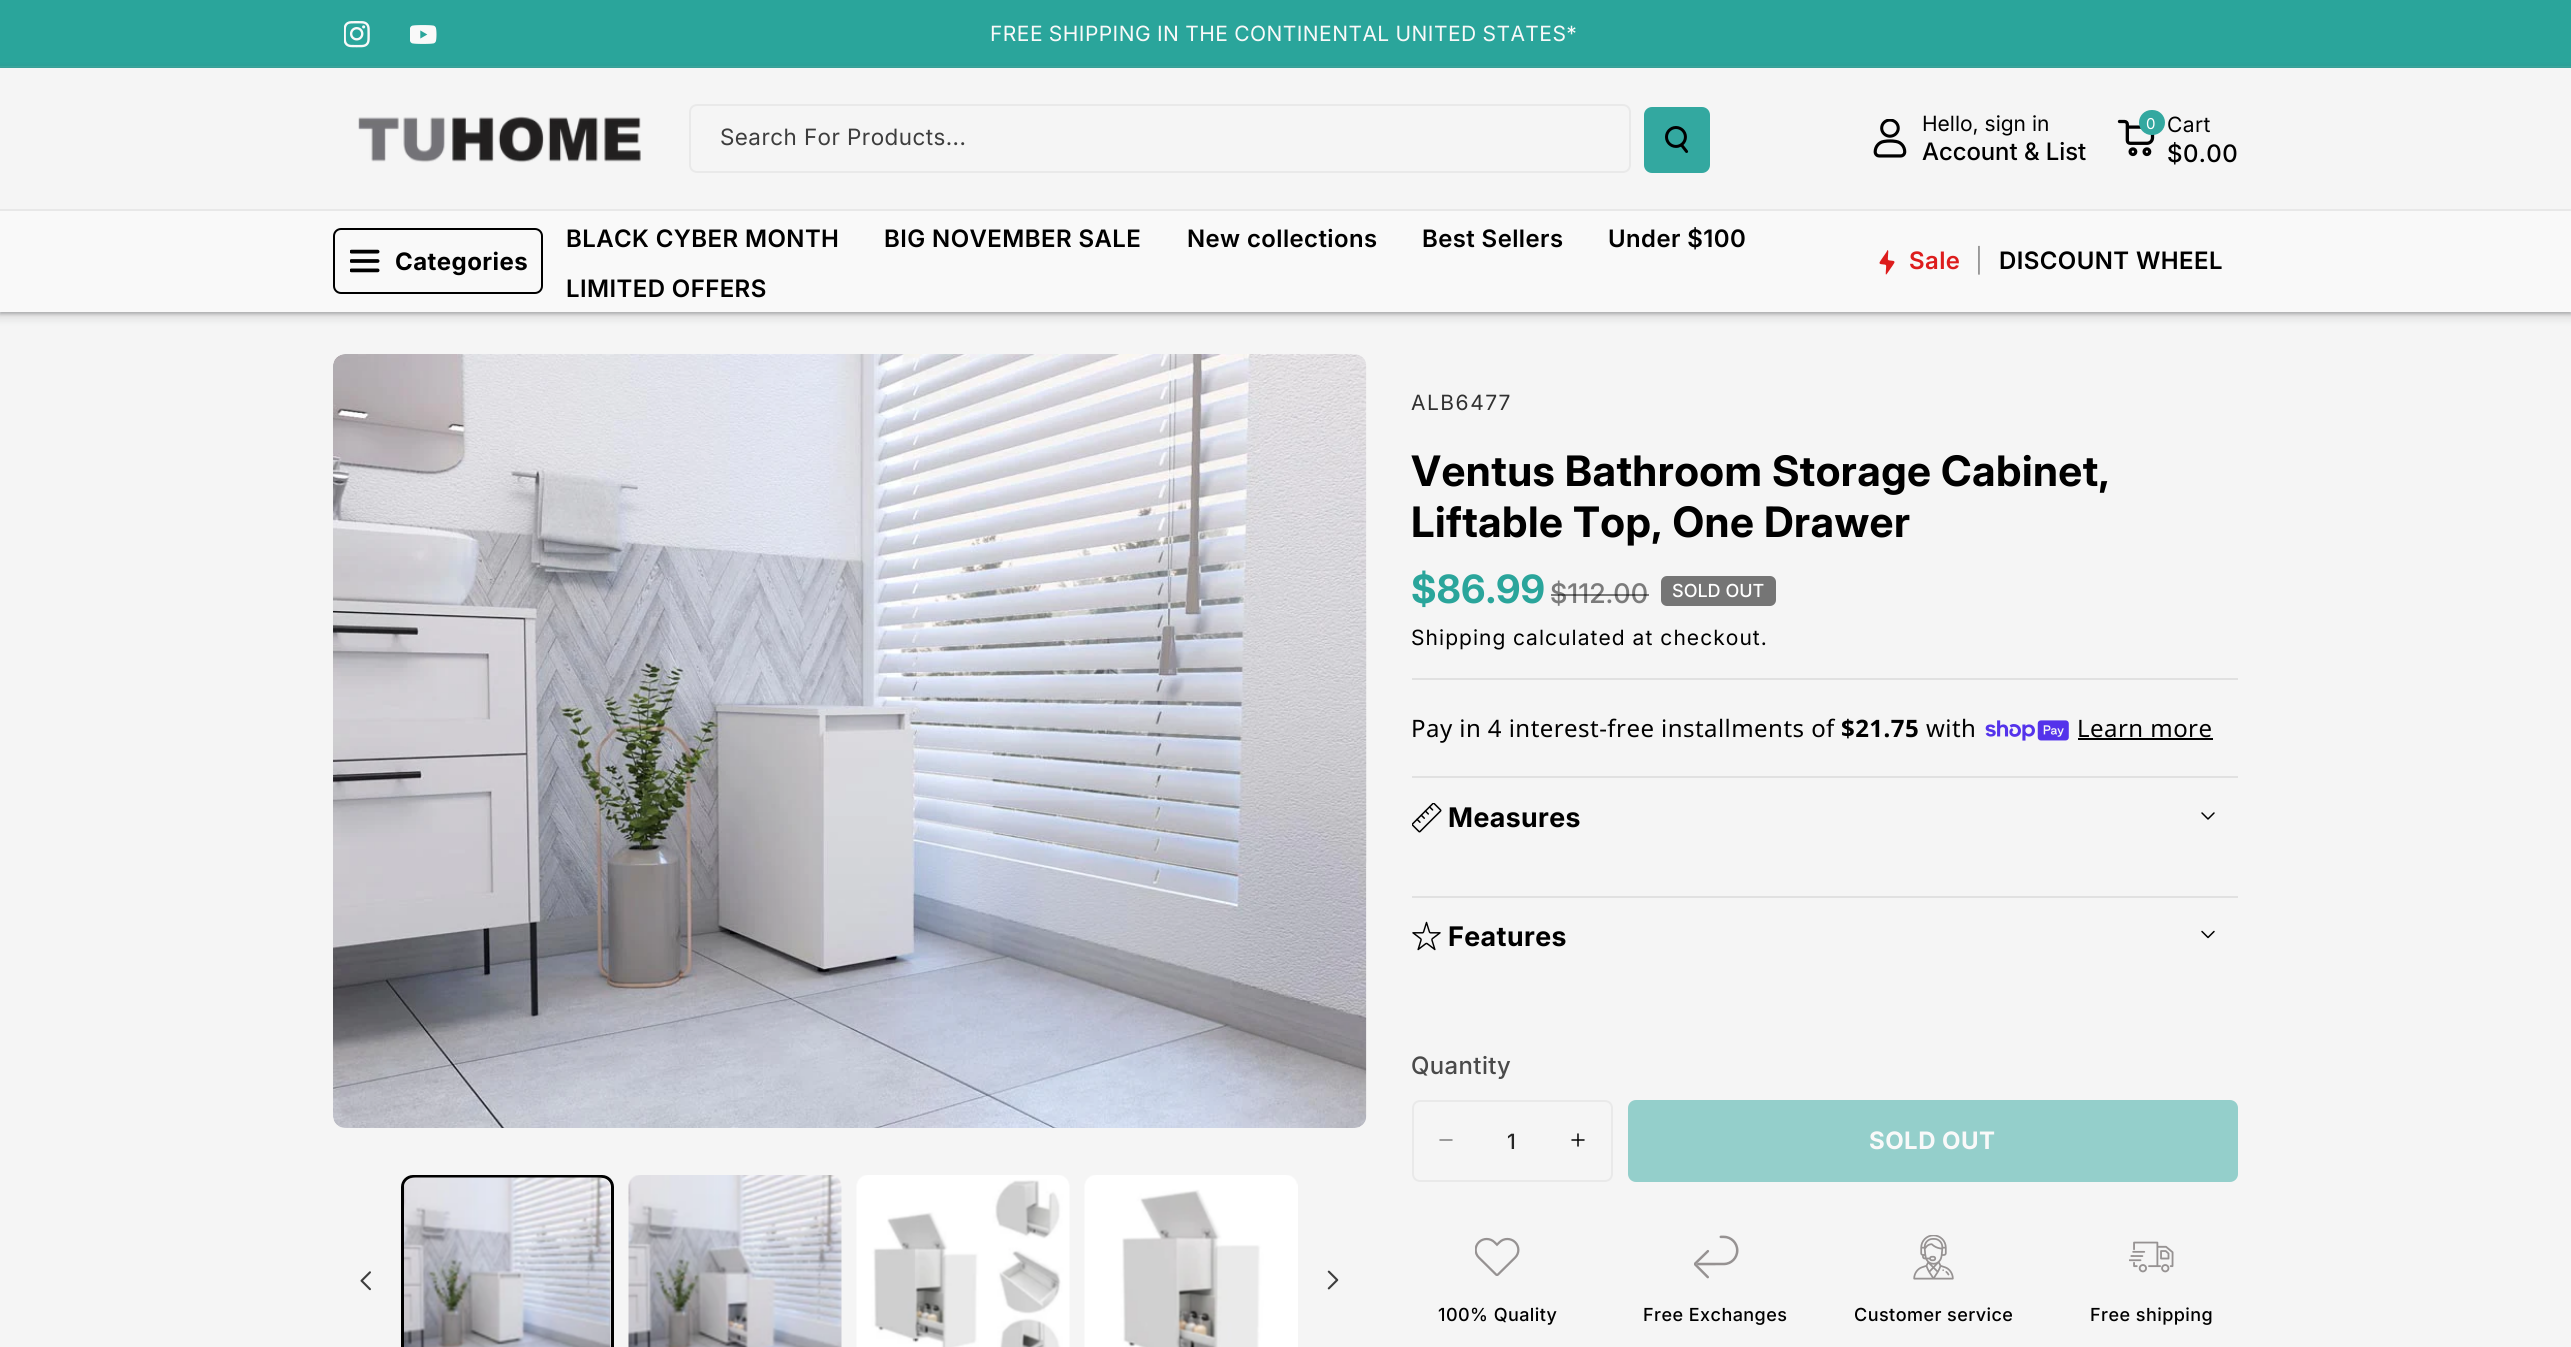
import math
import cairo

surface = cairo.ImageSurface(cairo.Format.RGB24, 2571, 1347)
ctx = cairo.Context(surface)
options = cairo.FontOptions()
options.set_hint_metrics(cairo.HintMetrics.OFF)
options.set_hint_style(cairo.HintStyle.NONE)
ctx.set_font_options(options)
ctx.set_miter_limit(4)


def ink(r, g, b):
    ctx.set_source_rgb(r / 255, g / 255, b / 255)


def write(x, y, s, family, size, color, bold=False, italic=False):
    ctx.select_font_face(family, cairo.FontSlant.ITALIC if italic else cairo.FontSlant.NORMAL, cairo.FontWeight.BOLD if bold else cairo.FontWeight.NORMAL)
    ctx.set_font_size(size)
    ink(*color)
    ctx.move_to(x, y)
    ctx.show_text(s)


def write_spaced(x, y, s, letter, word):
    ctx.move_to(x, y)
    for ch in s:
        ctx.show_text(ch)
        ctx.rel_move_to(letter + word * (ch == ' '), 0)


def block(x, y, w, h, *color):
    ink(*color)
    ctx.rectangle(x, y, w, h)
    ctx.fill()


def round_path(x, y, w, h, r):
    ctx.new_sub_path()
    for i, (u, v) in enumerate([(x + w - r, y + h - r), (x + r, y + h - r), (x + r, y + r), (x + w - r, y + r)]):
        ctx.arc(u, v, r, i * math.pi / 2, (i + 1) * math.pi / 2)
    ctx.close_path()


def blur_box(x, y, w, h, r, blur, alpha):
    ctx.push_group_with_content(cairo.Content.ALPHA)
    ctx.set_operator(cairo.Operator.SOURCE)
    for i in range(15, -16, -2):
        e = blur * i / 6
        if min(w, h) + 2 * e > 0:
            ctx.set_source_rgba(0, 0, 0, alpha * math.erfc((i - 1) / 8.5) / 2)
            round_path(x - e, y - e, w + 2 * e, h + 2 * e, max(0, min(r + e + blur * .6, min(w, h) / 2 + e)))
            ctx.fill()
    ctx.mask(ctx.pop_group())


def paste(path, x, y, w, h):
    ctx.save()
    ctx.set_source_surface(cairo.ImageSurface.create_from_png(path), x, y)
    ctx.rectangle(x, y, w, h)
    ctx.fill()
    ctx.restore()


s1 = dict(family="Inter", size=21, color=(0, 0, 0))
s2 = dict(family="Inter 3 Medium", size=24, color=(0, 0, 0))
s3 = dict(family="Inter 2", size=39, color=(42, 165, 155), bold=True)
s4 = dict(family="Inter Medium", size=27, color=(123, 123, 123))
s5 = dict(family="Inter 2 Medium", size=18, color=(255, 255, 255))
s6 = dict(family="Inter 2 Medium", size=21, color=(37, 37, 37))

ink(245, 245, 245)
ctx.paint()
block(0, 0, 2571, 66, 42, 165, 155)
block(0, 66, 2571, 2, 56, 171, 162)
paste("pic1.png", 344, 21, 26, 27)
paste("pic2.png", 410, 25, 27, 19)
ctx.select_font_face("Inter")
ctx.set_font_size(21)
ink(249, 249, 249)
write_spaced(990, 41, "FREE SHIPPING IN THE CONTINENTAL UNITED STATES*", 0.45, -0.5)
ctx.save()
ctx.set_fill_rule(cairo.FillRule.EVEN_ODD)
ctx.new_path()
ctx.move_to(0, 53)
ctx.line_to(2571, 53)
ctx.line_to(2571, 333)
ctx.line_to(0, 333)
ctx.close_path()
ctx.move_to(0, 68)
ctx.line_to(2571, 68)
ctx.line_to(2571, 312)
ctx.line_to(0, 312)
ctx.close_path()
ctx.clip()
ink(60, 64, 67)
blur_box(-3, 68, 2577, 250, 0, 4.5, 0.15)
ctx.restore()
ctx.save()
ctx.set_fill_rule(cairo.FillRule.EVEN_ODD)
ctx.new_path()
ctx.move_to(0, 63)
ctx.line_to(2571, 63)
ctx.line_to(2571, 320)
ctx.line_to(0, 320)
ctx.close_path()
ctx.move_to(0, 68)
ctx.line_to(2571, 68)
ctx.line_to(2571, 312)
ctx.line_to(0, 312)
ctx.close_path()
ctx.clip()
ink(60, 64, 67)
blur_box(0, 69, 2571, 245, 0, 1.5, 0.3)
ctx.restore()
paste("pic3.png", 358, 116, 283, 47)
round_path(690, 105, 940, 67, 7)
ink(233, 233, 233)
ctx.stroke()
ctx.select_font_face("Inter 2")
ctx.set_font_size(22.5)
ink(61, 61, 61)
write_spaced(720, 145, "Search For Products...", 0.45, 0)
ink(51, 168, 160)
round_path(1644, 107, 66, 66, 8)
ctx.fill()
paste("pic4.png", 1665, 126, 24, 27)
paste("pic5.png", 1873, 119, 34, 39)
write(1922, 131, "Hello, sign in", **s1)
write(1922, 160, "Account & List", **s2)
paste("pic6.png", 2117, 119, 38, 38)
ink(51, 168, 160)
round_path(2139, 110, 26, 25, 12.5)
ctx.fill()
ctx.select_font_face("Inter")
ctx.set_font_size(15)
ink(255, 255, 255)
write_spaced(2146, 129, "0", 0.45, 0)
ctx.set_font_size(21)
ink(0, 0, 0)
write_spaced(2167, 132, "Cart", 0.45, 0)
ctx.select_font_face("Inter 3 Medium")
ctx.set_font_size(24)
write_spaced(2167, 162, "$0.00", 0.45, 0)
block(0, 211, 2571, 101, 249, 249, 249)
block(0, 209, 2571, 2, 232, 232, 232)
round_path(334, 229, 208, 64, 7)
ink(0, 0, 0)
ctx.stroke()
paste("pic7.png", 350, 249, 30, 24)
ctx.select_font_face("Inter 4", cairo.FontSlant.NORMAL, cairo.FontWeight.BOLD)
write_spaced(395, 270, "Categories", 0.45, 0)
ctx.select_font_face("Inter SemiBold")
write_spaced(566, 247, "BLACK CYBER MONTH", 0.45, 0)
write_spaced(884, 247, "BIG NOVEMBER SALE", 0.45, 0)
write_spaced(1187, 247, "New collections", 0.45, 0)
write_spaced(1422, 247, "Best Sellers", 0.45, 0)
write_spaced(1608, 247, "Under $100", 0.45, 0)
write_spaced(566, 297, "LIMITED OFFERS", 0.45, 0)
paste("pic8.png", 1879, 250, 16, 25)
ink(221, 29, 29)
write_spaced(1909, 269, "Sale", 0.45, 0)
ctx.select_font_face("Inter 3")
ink(149, 149, 149)
write_spaced(1975, 269, "|", 0.45, 0)
ctx.select_font_face("Inter SemiBold")
ink(0, 0, 0)
write_spaced(1999, 269, "DISCOUNT WHEEL", 0.45, 0)
paste("pic9.png", 333, 354, 1034, 774)
paste("pic10.png", 360, 1271, 11, 20)
round_path(402.5, 1176.5, 210, 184, 10.5)
ctx.set_line_width(3)
ctx.stroke()
paste("pic11.png", 404, 1177, 207, 170)
paste("pic12.png", 628, 1175, 214, 172)
paste("pic13.png", 856, 1175, 214, 172)
paste("pic14.png", 1084, 1175, 214, 172)
paste("pic15.png", 1327, 1270, 12, 20)
ctx.select_font_face("Inter")
ctx.set_font_size(21)
ink(49, 49, 49)
write_spaced(1411, 410, "ALB6477", 1.5, 0)
ctx.select_font_face("Inter", cairo.FontSlant.NORMAL, cairo.FontWeight.BOLD)
ctx.set_font_size(42)
ink(0, 0, 0)
write_spaced(1411, 486, "Ventus Bathroom Storage Cabinet,", 0.45, 0)
write_spaced(1411, 537, "Liftable Top, One Drawer", 0.45, 0)
block(1412, 678, 826, 2, 225, 225, 225)
write(1411, 603, "$86.99", **s3)
write(1550, 603, "$112.00", **s4)
ctx.set_source_rgba(0, 0, 0, 0.5)
ctx.rectangle(1551, 594, 98, 2)
ctx.fill()
ink(117, 117, 117)
round_path(1661, 576, 115, 30, 6)
ctx.fill()
write(1672, 597, "SOLD OUT", **s5)
ctx.select_font_face("Inter")
ctx.set_font_size(21)
ink(0, 0, 0)
write_spaced(1411, 645, "Shipping", 1.05, 0)
write_spaced(1513, 645, "calculated at checkout.", 1.05, 0)
ctx.select_font_face("Noto Sans")
ctx.set_font_size(24)
write_spaced(1411, 737, "Pay in 4 interest-free installments of", 0.45, 0)
ctx.select_font_face("Noto Sans", cairo.FontSlant.NORMAL, cairo.FontWeight.BOLD)
write_spaced(1841, 737, "$21.75", 0.45, 0)
ctx.select_font_face("Noto Sans")
write_spaced(1926, 737, "with", 0.45, 0)
paste("pic16.png", 1985, 720, 84, 21)
write_spaced(2077, 737, "Learn more", 0.45, 0)
block(2078, 738, 135, 2, 0, 0, 0)
block(1412, 776, 826, 2, 225, 225, 225)
paste("pic17.png", 1412, 803, 30, 30)
ctx.select_font_face("Inter 3", cairo.FontSlant.NORMAL, cairo.FontWeight.BOLD)
ctx.set_font_size(27)
ink(0, 0, 0)
write_spaced(1448, 827, "Measures", 0.45, 0)
paste("pic18.png", 2201, 812, 14, 8)
block(1412, 896, 826, 2, 225, 225, 225)
paste("pic19.png", 1412, 921, 29, 30)
ink(0, 0, 0)
write_spaced(1448, 946, "Features", 0.45, 0)
paste("pic20.png", 2201, 930, 14, 9)
ctx.select_font_face("Inter 3 Medium")
ctx.set_font_size(24)
ink(74, 74, 74)
write_spaced(1411, 1074, "Quantity", 0.45, 0)
paste("pic21.png", 1439, 1139, 14, 2)
paste("pic22.png", 1571, 1133, 14, 14)
round_path(1413, 1101, 199, 80, 7)
ink(233, 233, 233)
ctx.set_line_width(2)
ctx.stroke()
write(1507, 1149, "1", **s6)
ink(148, 207, 203)
round_path(1628, 1100, 610, 82, 8)
ctx.fill()
ctx.select_font_face("Inter 4", cairo.FontSlant.NORMAL, cairo.FontWeight.BOLD)
ctx.set_font_size(24)
ink(249, 249, 249)
write_spaced(1869, 1149, "SOLD OUT", 0.45, 0)
paste("pic23.png", 1475, 1237, 45, 39)
ctx.select_font_face("Inter 2 Medium")
ctx.set_font_size(18)
ink(0, 0, 0)
write_spaced(1438, 1321, "100% Quality", 0.45, 0)
paste("pic24.png", 1694, 1235, 45, 44)
write_spaced(1643, 1321, "Free Exchanges", 0.45, 0)
paste("pic25.png", 1913, 1235, 41, 45)
write_spaced(1854, 1321, "Customer service", 0.45, 0)
paste("pic26.png", 2129, 1241, 45, 32)
write_spaced(2090, 1321, "Free shipping", 0.45, 0)
surface.write_to_png("screenshot.png")
